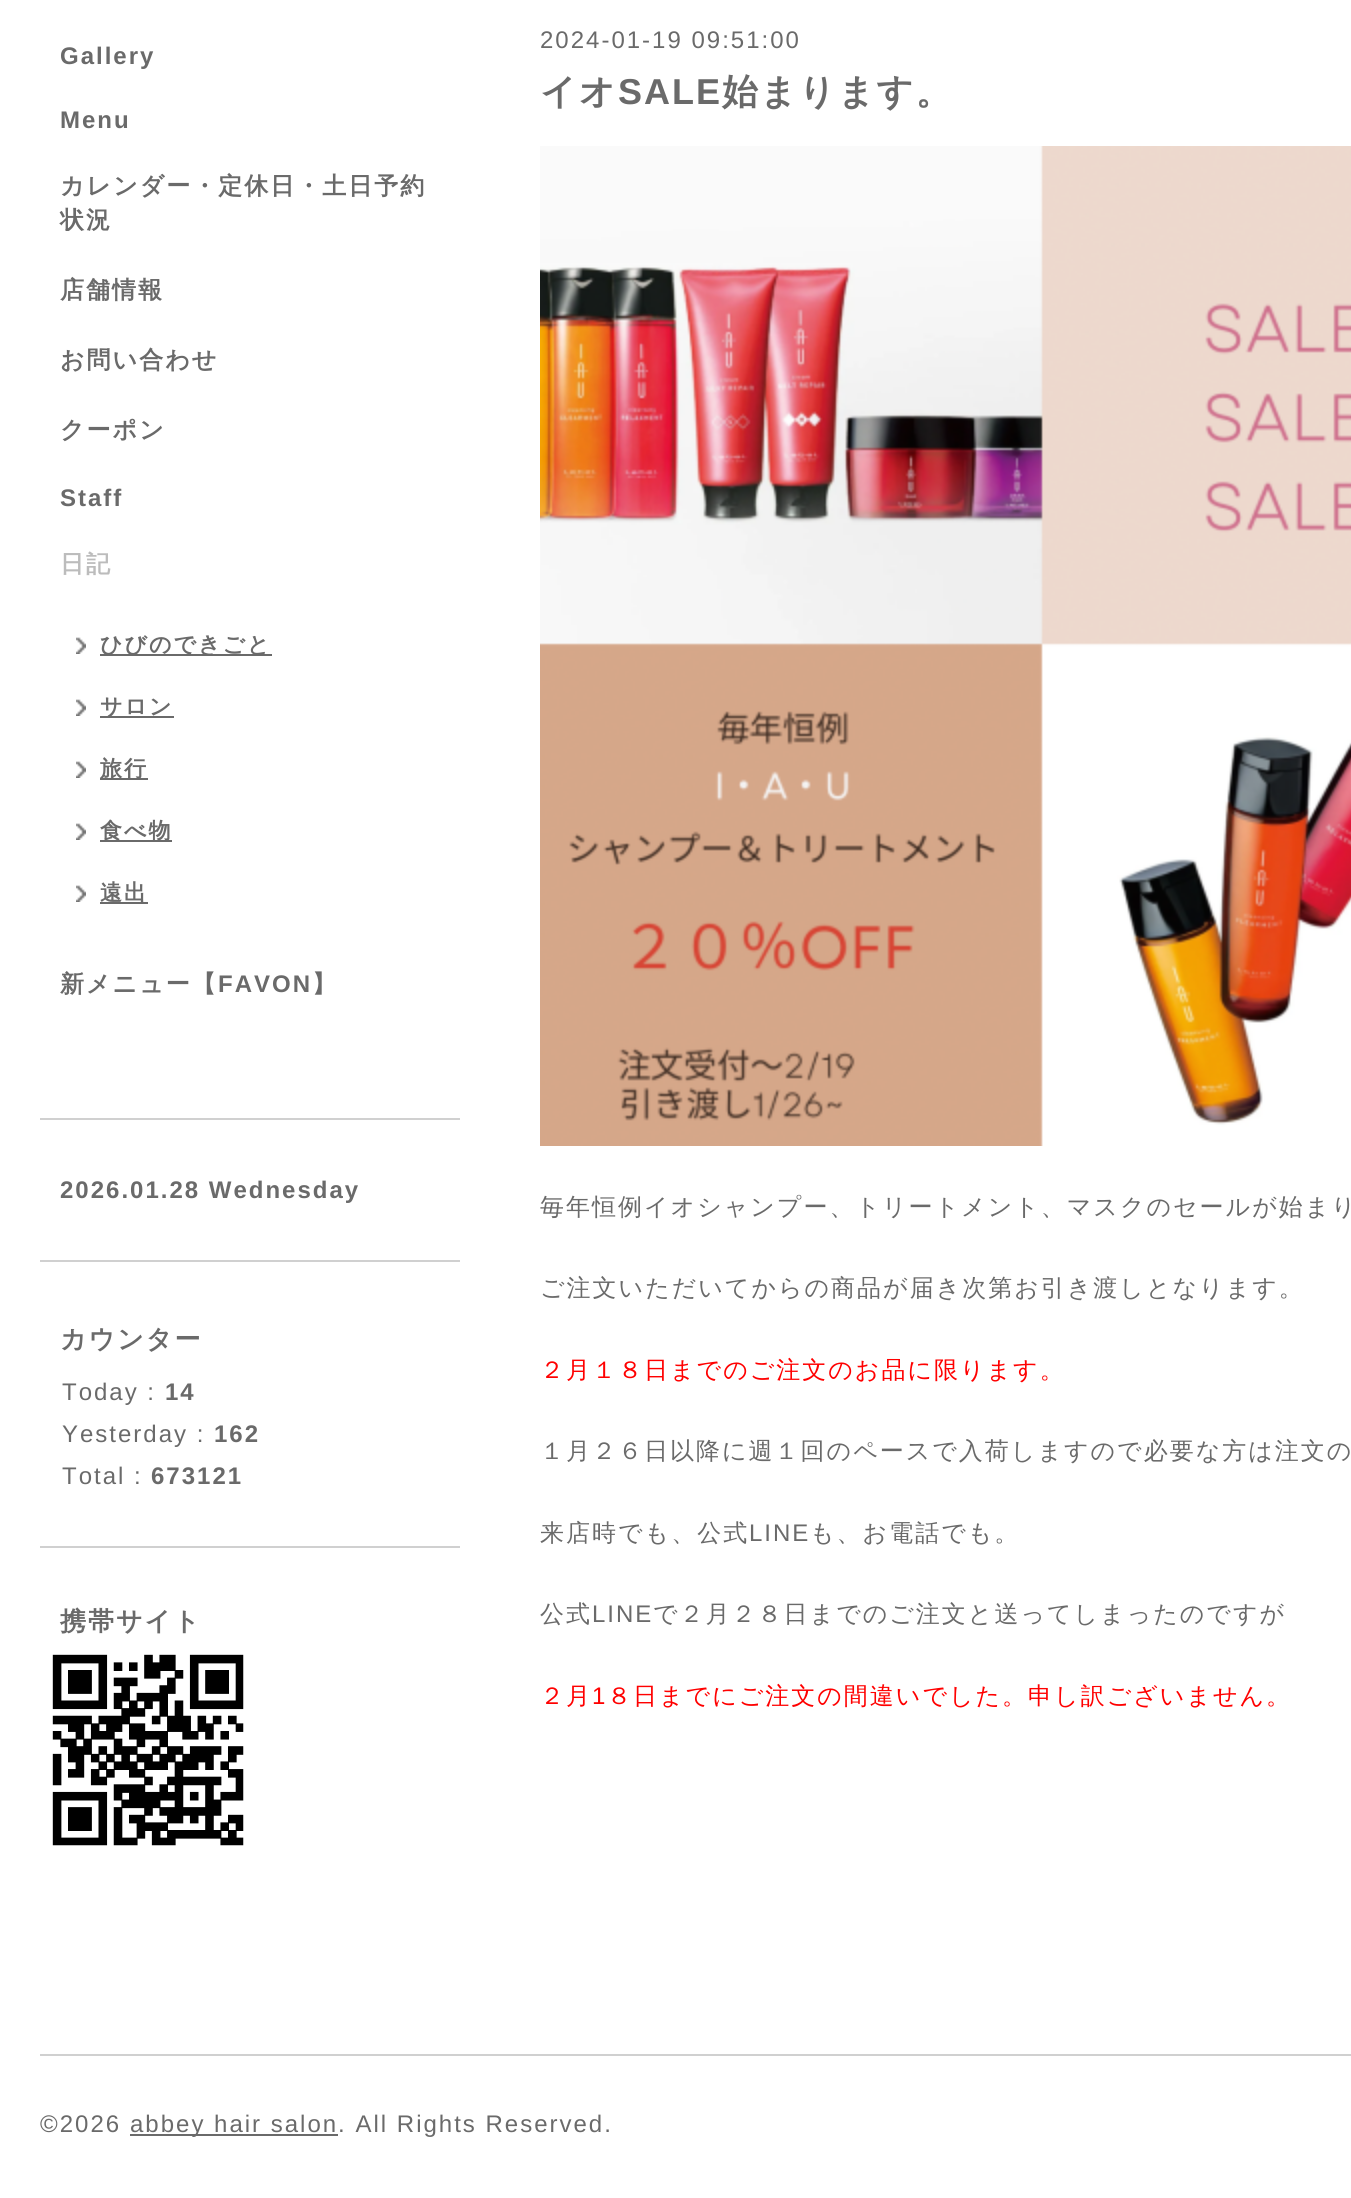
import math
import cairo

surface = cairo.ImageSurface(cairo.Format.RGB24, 1351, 2198)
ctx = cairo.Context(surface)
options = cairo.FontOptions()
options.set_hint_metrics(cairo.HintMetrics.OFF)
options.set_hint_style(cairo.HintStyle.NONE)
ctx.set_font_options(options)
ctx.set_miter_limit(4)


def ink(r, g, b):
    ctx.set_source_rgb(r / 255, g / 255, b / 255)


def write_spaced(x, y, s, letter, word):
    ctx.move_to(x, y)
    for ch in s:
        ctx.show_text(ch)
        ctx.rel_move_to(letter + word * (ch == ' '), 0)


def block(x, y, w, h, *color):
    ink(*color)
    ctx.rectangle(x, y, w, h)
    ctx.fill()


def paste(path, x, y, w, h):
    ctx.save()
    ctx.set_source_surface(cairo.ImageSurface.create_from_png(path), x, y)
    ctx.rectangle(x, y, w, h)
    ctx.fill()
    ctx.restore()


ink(255, 255, 255)
ctx.paint()
ctx.select_font_face("Liberation Sans", cairo.FontSlant.NORMAL, cairo.FontWeight.BOLD)
ctx.set_font_size(24)
ink(106, 106, 106)
write_spaced(60, 64, "Gallery", 2, 0)
write_spaced(60, 128, "Menu", 2, 0)
ctx.select_font_face("WenQuanYi Zen Hei", cairo.FontSlant.NORMAL, cairo.FontWeight.BOLD)
write_spaced(60, 194, "カレンダー・定休日・土日予約", 2, 0)
write_spaced(60, 228, "状況", 2, 0)
write_spaced(60, 298, "店舗情報", 2, 0)
write_spaced(60, 368, "お問い合わせ", 2, 0)
write_spaced(60, 438, "クーポン", 2, 0)
ctx.select_font_face("Liberation Sans", cairo.FontSlant.NORMAL, cairo.FontWeight.BOLD)
write_spaced(60, 506, "Staff", 2, 0)
ctx.select_font_face("WenQuanYi Zen Hei", cairo.FontSlant.NORMAL, cairo.FontWeight.BOLD)
ink(188, 188, 188)
write_spaced(60, 572, "日記", 2, 0)
paste("pic1.png", 76, 637, 10, 17)
block(100, 654, 172, 2, 106, 106, 106)
ctx.set_font_size(22)
write_spaced(100, 652, "ひびのできごと", 2, 0)
paste("pic1.png", 76, 699, 10, 17)
block(100, 716, 74, 2, 106, 106, 106)
write_spaced(100, 714, "サロン", 2, 0)
paste("pic1.png", 76, 761, 10, 17)
block(100, 778, 48, 2, 106, 106, 106)
write_spaced(100, 776, "旅行", 2, 0)
paste("pic1.png", 76, 823, 10, 17)
block(100, 840, 72, 2, 106, 106, 106)
write_spaced(100, 838, "食べ物", 2, 0)
paste("pic1.png", 76, 885, 10, 17)
block(100, 902, 48, 2, 106, 106, 106)
write_spaced(100, 900, "遠出", 2, 0)
ctx.set_font_size(24)
write_spaced(60, 992, "新メニュー【", 2, 0)
ctx.select_font_face("Liberation Sans", cairo.FontSlant.NORMAL, cairo.FontWeight.BOLD)
write_spaced(218, 992, "FAVON", 2, 0)
ctx.select_font_face("WenQuanYi Zen Hei", cairo.FontSlant.NORMAL, cairo.FontWeight.BOLD)
write_spaced(312, 992, "】", 2, 0)
ctx.select_font_face("Liberation Sans")
write_spaced(540, 48, "2024-01-19 09:51:00", 2, 0)
ctx.select_font_face("WenQuanYi Zen Hei", cairo.FontSlant.NORMAL, cairo.FontWeight.BOLD)
ctx.set_font_size(36)
write_spaced(540, 104, "イオ", 2, 0)
ctx.select_font_face("Liberation Sans", cairo.FontSlant.NORMAL, cairo.FontWeight.BOLD)
write_spaced(618, 104, "SALE", 2, 0)
ctx.select_font_face("WenQuanYi Zen Hei", cairo.FontSlant.NORMAL, cairo.FontWeight.BOLD)
write_spaced(722, 104, "始まります。", 2, 0)
paste("pic2.png", 540, 146, 811, 1000)
ctx.select_font_face("WenQuanYi Zen Hei Medium")
ctx.set_font_size(24)
write_spaced(540, 1215, "毎年恒例イオシャンプー、トリートメント、マスクのセールが始まり", 2, 0)
write_spaced(540, 1296, "ご注文いただいてからの商品が届き次第お引き渡しとなります。", 2, 0)
ink(255, 0, 0)
write_spaced(540, 1378, "２月１８日までのご注文のお品に限ります。", 2, 0)
ink(106, 106, 106)
write_spaced(540, 1459, "１月２６日以降に週１回のペースで入荷しますので必要な方は注文の", 2, 0)
write_spaced(540, 1541, "来店時でも、公式", 2, 0)
ctx.select_font_face("Liberation Sans")
write_spaced(749, 1541, "LINE", 2, 0)
ctx.select_font_face("WenQuanYi Zen Hei Medium")
write_spaced(810, 1541, "も、お電話でも。", 2, 0)
write_spaced(540, 1622, "公式", 2, 0)
ctx.select_font_face("Liberation Sans")
write_spaced(592, 1622, "LINE", 2, 0)
ctx.select_font_face("WenQuanYi Zen Hei Medium")
write_spaced(653, 1622, "で２月２８日までのご注文と送ってしまったのですが", 2, 0)
ink(255, 0, 0)
write_spaced(540, 1704, "２月", 2, 0)
ctx.select_font_face("Liberation Sans")
write_spaced(592, 1704, "1", 2, 0)
ctx.select_font_face("WenQuanYi Zen Hei Medium")
write_spaced(607, 1704, "８日までにご注文の間違いでした。申し訳ございません。", 2, 0)
block(40, 1118, 420, 2, 208, 208, 208)
block(40, 1260, 420, 2, 208, 208, 208)
ctx.select_font_face("Liberation Sans", cairo.FontSlant.NORMAL, cairo.FontWeight.BOLD)
ink(106, 106, 106)
write_spaced(60, 1198, "2026.01.28 Wednesday", 2, 0)
block(40, 1546, 420, 2, 208, 208, 208)
ctx.select_font_face("WenQuanYi Zen Hei", cairo.FontSlant.NORMAL, cairo.FontWeight.BOLD)
ctx.set_font_size(26)
ink(106, 106, 106)
write_spaced(60, 1348, "カウンター", 2, 0)
ctx.select_font_face("Liberation Sans")
ctx.set_font_size(24)
write_spaced(62, 1400, "Today :", 2, 0)
ctx.select_font_face("Liberation Sans", cairo.FontSlant.NORMAL, cairo.FontWeight.BOLD)
write_spaced(165, 1400, "14", 2, 0)
ctx.select_font_face("Liberation Sans")
write_spaced(62, 1442, "Yesterday :", 2, 0)
ctx.select_font_face("Liberation Sans", cairo.FontSlant.NORMAL, cairo.FontWeight.BOLD)
write_spaced(214, 1442, "162", 2, 0)
ctx.select_font_face("Liberation Sans")
write_spaced(62, 1484, "Total :", 2, 0)
ctx.select_font_face("Liberation Sans", cairo.FontSlant.NORMAL, cairo.FontWeight.BOLD)
write_spaced(151, 1484, "673121", 2, 0)
ctx.select_font_face("WenQuanYi Zen Hei", cairo.FontSlant.NORMAL, cairo.FontWeight.BOLD)
ctx.set_font_size(26)
write_spaced(60, 1630, "携帯サイト", 2, 0)
paste("pic3.png", 52, 1654, 192, 192)
block(40, 2054, 1311, 2, 208, 208, 208)
ctx.select_font_face("Liberation Sans")
ctx.set_font_size(24)
ink(106, 106, 106)
write_spaced(40, 2132, "©2026", 2, 0)
block(130, 2134, 208, 2, 106, 106, 106)
write_spaced(130, 2132, "abbey hair salon. All Rights Reserved.", 2, 0)
surface.write_to_png("screenshot.png")
